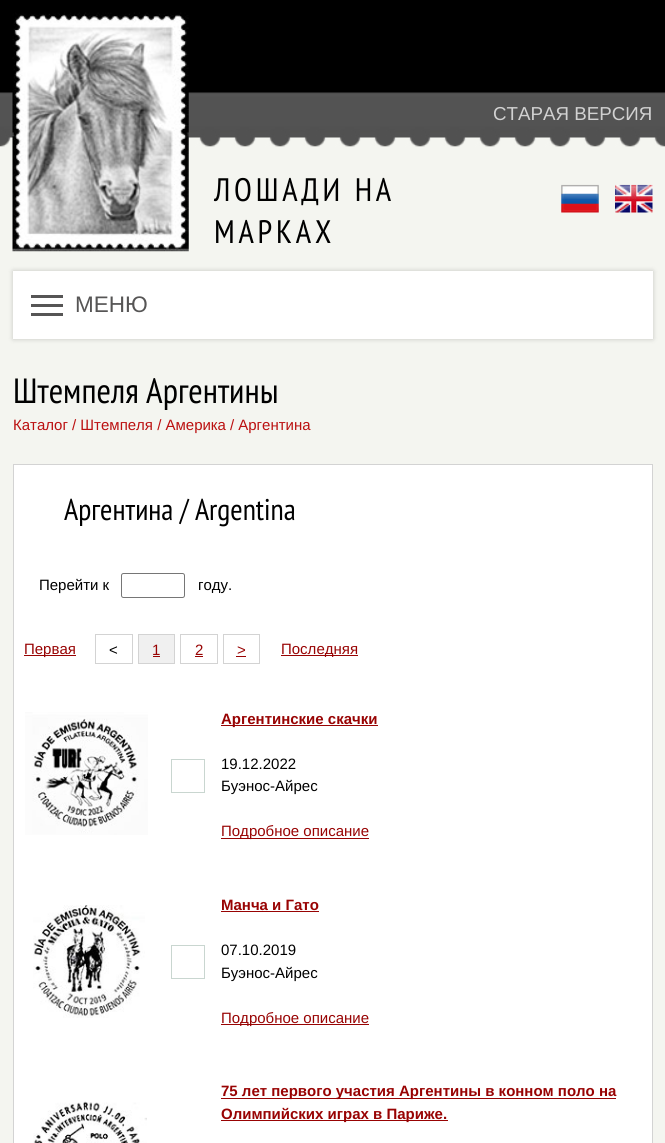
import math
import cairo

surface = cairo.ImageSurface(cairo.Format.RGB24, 665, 1143)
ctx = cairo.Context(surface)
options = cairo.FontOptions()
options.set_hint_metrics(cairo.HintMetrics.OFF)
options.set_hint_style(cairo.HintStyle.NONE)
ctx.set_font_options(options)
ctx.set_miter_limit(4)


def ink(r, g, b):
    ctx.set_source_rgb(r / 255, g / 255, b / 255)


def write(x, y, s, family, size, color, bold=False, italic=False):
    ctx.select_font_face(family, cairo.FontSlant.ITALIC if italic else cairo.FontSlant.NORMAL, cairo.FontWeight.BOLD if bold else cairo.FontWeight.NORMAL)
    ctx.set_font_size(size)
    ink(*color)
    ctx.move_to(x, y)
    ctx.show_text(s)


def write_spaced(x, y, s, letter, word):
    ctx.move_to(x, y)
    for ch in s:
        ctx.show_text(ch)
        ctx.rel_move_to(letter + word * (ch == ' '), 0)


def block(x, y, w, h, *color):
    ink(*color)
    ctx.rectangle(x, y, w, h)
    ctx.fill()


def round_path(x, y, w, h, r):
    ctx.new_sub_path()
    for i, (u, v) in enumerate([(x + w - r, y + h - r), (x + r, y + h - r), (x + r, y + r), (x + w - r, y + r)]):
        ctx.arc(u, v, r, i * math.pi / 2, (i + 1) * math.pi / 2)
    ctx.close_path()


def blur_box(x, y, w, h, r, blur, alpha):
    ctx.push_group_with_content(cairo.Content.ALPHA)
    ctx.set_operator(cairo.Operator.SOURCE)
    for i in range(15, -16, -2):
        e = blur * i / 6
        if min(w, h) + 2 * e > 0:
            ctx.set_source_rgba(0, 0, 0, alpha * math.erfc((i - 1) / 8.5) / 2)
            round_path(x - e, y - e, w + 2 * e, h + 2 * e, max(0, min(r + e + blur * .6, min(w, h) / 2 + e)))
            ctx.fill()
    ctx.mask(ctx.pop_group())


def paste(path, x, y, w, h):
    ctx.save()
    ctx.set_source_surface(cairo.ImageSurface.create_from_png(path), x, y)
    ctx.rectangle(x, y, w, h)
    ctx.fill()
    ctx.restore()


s1 = dict(family="Liberation Sans", size=18.75, color=(209, 209, 209))
s2 = dict(family="Liberation Sans", size=22.5, color=(86, 85, 85))
s3 = dict(family="PT Sans Narrow", size=35, color=(0, 0, 0))
s4 = dict(family="Liberation Sans", size=15, color=(187, 16, 16))
s5 = dict(family="PT Sans Narrow", size=30, color=(0, 0, 0))
s6 = dict(family="Liberation Sans", size=15, color=(0, 0, 0))
s7 = dict(family="Liberation Sans", size=15, color=(152, 3, 3))
s8 = dict(family="Liberation Sans", size=15, color=(152, 3, 3), bold=True)

ink(244, 245, 240)
ctx.paint()
paste("pic1.png", 0, 0, 665, 147)
paste("pic2.png", 12, 12, 177, 240)
write(493, 120, "СТАРАЯ ВЕРСИЯ", **s1)
ctx.select_font_face("PT Sans Narrow")
ctx.set_font_size(32.5)
ink(0, 0, 0)
write_spaced(214, 201, "ЛОШАДИ НА", 3.75, 0)
write_spaced(214, 243, "МАРКАХ", 3.75, 0)
paste("pic3.png", 561, 184, 38, 29)
paste("pic4.png", 615, 184, 38, 29)
ink(0, 0, 0)
blur_box(13, 271, 640, 68, 0, 2.5, 0.2)
block(13, 271, 640, 68, 255, 255, 255)
block(31, 295, 32, 3, 86, 85, 85)
block(31, 304, 32, 3, 86, 85, 85)
block(31, 313, 32, 3, 86, 85, 85)
write(75, 312, "МЕНЮ", **s2)
write(13, 403, "Штемпеля Аргентины", **s3)
write(13, 430, "Каталог / Штемпеля / Америка / Аргентина", **s4)
ink(255, 255, 255)
ctx.rectangle(13.5, 464.5, 639, 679)
ctx.fill_preserve()
ink(211, 211, 211)
ctx.set_line_width(1)
ctx.stroke()
write(64, 520, "Аргентина / Argentina", **s5)
write(39, 590, "Перейти к", **s6)
round_path(121.5, 573.5, 63, 24, 2)
ink(118, 118, 118)
ctx.stroke()
write(198, 590, "году.", **s6)
block(24, 655, 52, 1, 152, 3, 3)
write(24, 654, "Первая", **s7)
ctx.rectangle(95.5, 634.5, 37, 29)
ink(211, 211, 211)
ctx.stroke()
write(109, 655, "<", **s6)
ink(240, 240, 240)
ctx.rectangle(138.5, 634.5, 36, 29)
ctx.fill_preserve()
ink(211, 211, 211)
ctx.stroke()
write(152, 655, "1", **s7)
block(153, 656, 7, 1, 152, 3, 3)
ctx.rectangle(180.5, 634.5, 37, 29)
ink(211, 211, 211)
ctx.stroke()
write(195, 655, "2", **s7)
block(195, 656, 8, 1, 152, 3, 3)
ctx.rectangle(223.5, 634.5, 36, 29)
ink(211, 211, 211)
ctx.stroke()
write(237, 655, ">", **s7)
block(236, 656, 10, 1, 152, 3, 3)
block(281, 655, 77, 1, 152, 3, 3)
write(281, 654, "Последняя", **s7)
paste("pic5.png", 25, 712, 123, 123)
ctx.rectangle(171.5, 759.5, 33, 33)
ink(201, 214, 208)
ctx.stroke()
block(221, 725, 157, 1, 152, 3, 3)
write(221, 724, "Аргентинские скачки", **s8)
write(221, 769, "19.12.2022", **s6)
write(221, 791, "Буэнос-Айрес", **s6)
block(221, 838, 148, 1, 152, 3, 3)
write(221, 836, "Подробное описание", **s7)
paste("pic6.png", 33, 905, 112, 113)
ctx.rectangle(171.5, 945.5, 33, 33)
ink(201, 214, 208)
ctx.stroke()
write(221, 910, "Манча и Гато", **s8)
block(221, 911, 98, 1, 152, 3, 3)
write(221, 955, "07.10.2019", **s6)
write(221, 978, "Буэнос-Айрес", **s6)
block(221, 1024, 148, 1, 152, 3, 3)
write(221, 1023, "Подробное описание", **s7)
paste("pic7.png", 33, 1101, 114, 42)
block(221, 1098, 395, 1, 152, 3, 3)
write(221, 1096, "75 лет первого участия Аргентины в конном поло на", **s8)
block(221, 1120, 227, 1, 152, 3, 3)
write(221, 1119, "Олимпийских играх в Париже.", **s8)
surface.write_to_png("screenshot.png")
